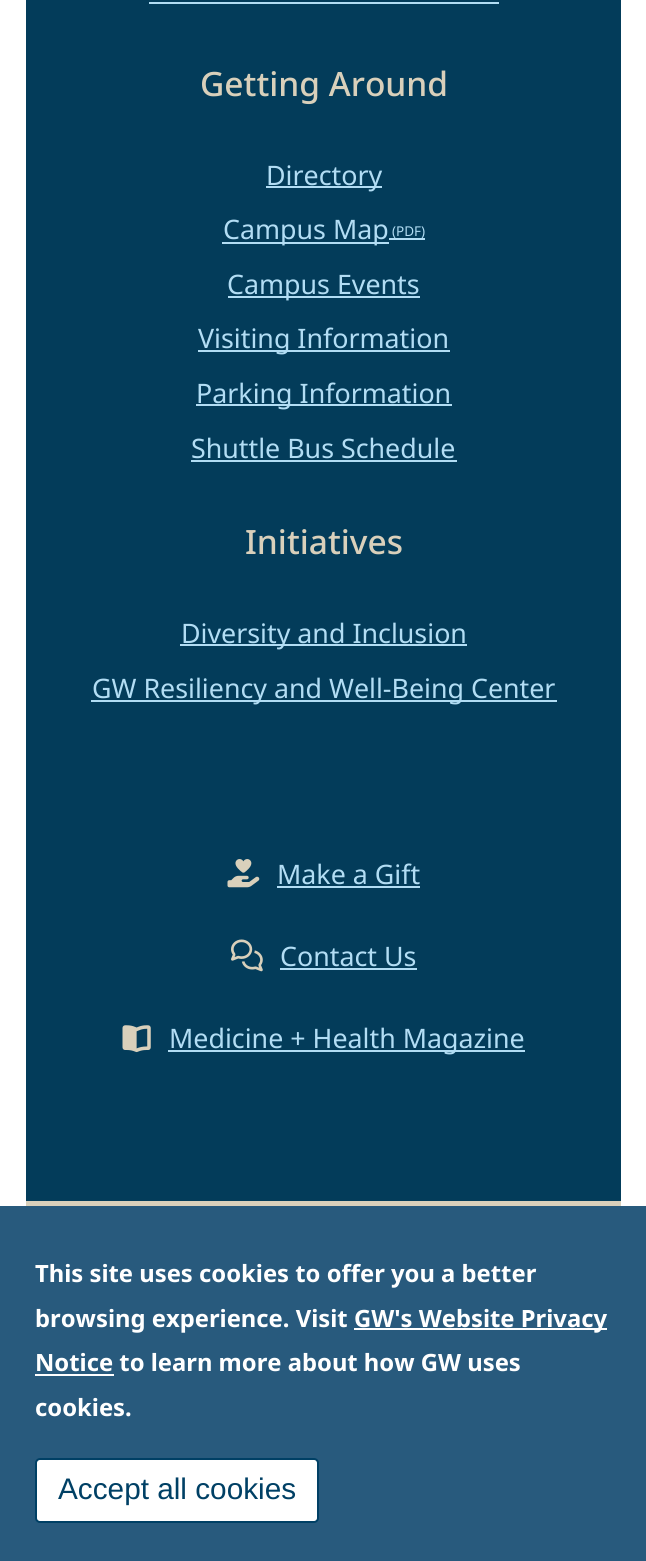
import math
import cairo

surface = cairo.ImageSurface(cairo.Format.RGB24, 646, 1561)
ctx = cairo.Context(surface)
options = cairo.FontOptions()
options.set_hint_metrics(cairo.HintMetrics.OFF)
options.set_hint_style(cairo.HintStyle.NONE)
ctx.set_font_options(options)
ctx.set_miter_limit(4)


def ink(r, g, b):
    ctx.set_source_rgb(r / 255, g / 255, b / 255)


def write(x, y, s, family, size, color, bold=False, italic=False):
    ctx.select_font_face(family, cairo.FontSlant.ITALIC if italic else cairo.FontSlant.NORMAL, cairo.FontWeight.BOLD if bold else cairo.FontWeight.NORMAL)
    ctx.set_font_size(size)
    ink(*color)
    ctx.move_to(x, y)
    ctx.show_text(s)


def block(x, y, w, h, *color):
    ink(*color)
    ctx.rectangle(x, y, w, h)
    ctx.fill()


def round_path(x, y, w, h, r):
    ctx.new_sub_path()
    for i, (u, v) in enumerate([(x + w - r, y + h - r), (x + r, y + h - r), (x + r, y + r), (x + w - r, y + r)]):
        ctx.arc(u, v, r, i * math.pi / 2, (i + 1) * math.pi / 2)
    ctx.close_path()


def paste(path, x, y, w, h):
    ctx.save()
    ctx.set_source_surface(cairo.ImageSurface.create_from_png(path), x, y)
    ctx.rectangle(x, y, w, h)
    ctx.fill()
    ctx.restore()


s1 = dict(family="Noto Sans Medium", size=33.5, color=(217, 208, 187))
s2 = dict(family="Noto Sans", size=26.8, color=(178, 221, 244))
s3 = dict(family="Noto Sans", size=13.5, color=(178, 221, 244))
s4 = dict(family="Noto Sans", size=23.8, color=(255, 255, 255), bold=True)
s5 = dict(family="Liberation Sans", size=29.75, color=(0, 64, 101))

ink(255, 255, 255)
ctx.paint()
block(26, 0, 595, 1201, 3, 60, 90)
block(149, 2, 350, 2, 178, 221, 244)
write(200, 96, "Getting Around", **s1)
block(266, 186, 116, 2, 178, 221, 244)
write(266, 185, "Directory", **s2)
block(222, 242, 167, 2, 178, 221, 244)
write(223, 239, "Campus Map", **s2)
block(389, 238, 36, 2, 178, 221, 244)
write(392, 236, "(PDF)", **s3)
block(228, 296, 192, 2, 178, 221, 244)
write(227, 294, "Campus Events", **s2)
block(198, 350, 252, 2, 178, 221, 244)
write(198, 348, "Visiting Information", **s2)
block(196, 404, 256, 2, 178, 221, 244)
write(196, 403, "Parking Information", **s2)
write(191, 458, "Shuttle Bus Schedule", **s2)
block(191, 460, 266, 2, 178, 221, 244)
write(245, 554, "Initiatives", **s1)
block(180, 644, 287, 2, 178, 221, 244)
write(181, 643, "Diversity and Inclusion", **s2)
block(91, 700, 466, 2, 178, 221, 244)
write(92, 698, "GW Resiliency and Well-Being Center", **s2)
paste("pic1.png", 227, 859, 33, 29)
write(277, 884, "Make a Gift", **s2)
block(277, 886, 143, 2, 178, 221, 244)
paste("pic2.png", 231, 939, 32, 33)
write(280, 966, "Contact Us", **s2)
block(280, 968, 137, 2, 178, 221, 244)
paste("pic3.png", 122, 1025, 29, 28)
block(168, 1050, 357, 2, 178, 221, 244)
write(169, 1048, "Medicine + Health Magazine", **s2)
block(26, 1201, 595, 5, 217, 208, 187)
block(0, 1206, 646, 355, 40, 90, 125)
write(35, 1282, "This site uses cookies to offer you a better", **s4)
write(35, 1327, "browsing experience. Visit", **s4)
block(354, 1328, 253, 2, 255, 255, 255)
write(354, 1327, "GW's Website Privacy", **s4)
write(35, 1371, "Notice to learn more about how GW uses", **s4)
block(35, 1374, 79, 2, 255, 255, 255)
write(35, 1416, "cookies.", **s4)
round_path(36, 1459, 282, 63, 4)
ctx.fill_preserve()
ink(0, 64, 101)
ctx.stroke()
write(58, 1499, "Accept all cookies", **s5)
surface.write_to_png("screenshot.png")
